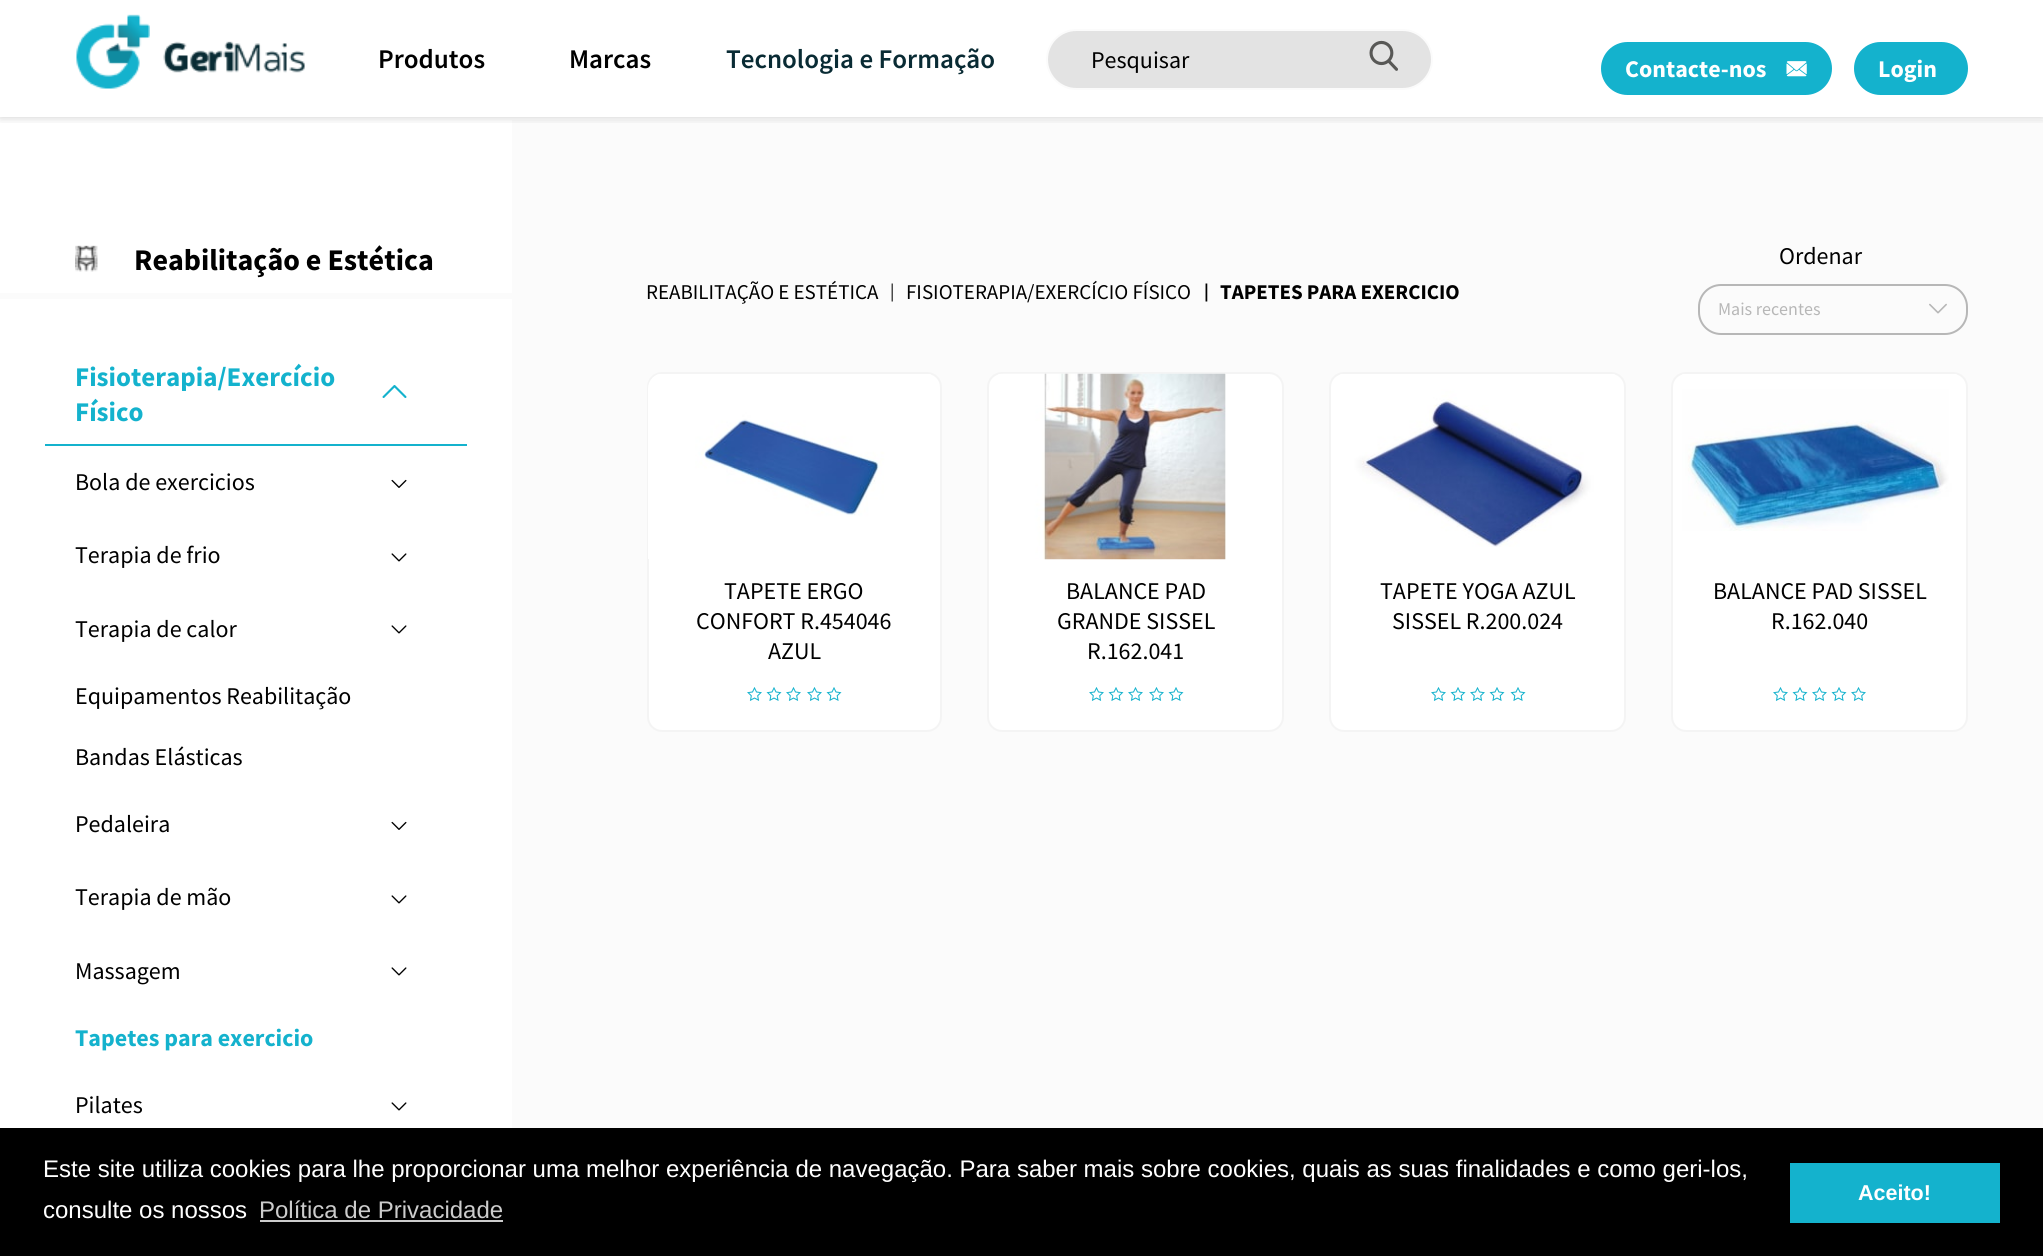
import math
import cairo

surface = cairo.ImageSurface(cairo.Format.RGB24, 2043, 1256)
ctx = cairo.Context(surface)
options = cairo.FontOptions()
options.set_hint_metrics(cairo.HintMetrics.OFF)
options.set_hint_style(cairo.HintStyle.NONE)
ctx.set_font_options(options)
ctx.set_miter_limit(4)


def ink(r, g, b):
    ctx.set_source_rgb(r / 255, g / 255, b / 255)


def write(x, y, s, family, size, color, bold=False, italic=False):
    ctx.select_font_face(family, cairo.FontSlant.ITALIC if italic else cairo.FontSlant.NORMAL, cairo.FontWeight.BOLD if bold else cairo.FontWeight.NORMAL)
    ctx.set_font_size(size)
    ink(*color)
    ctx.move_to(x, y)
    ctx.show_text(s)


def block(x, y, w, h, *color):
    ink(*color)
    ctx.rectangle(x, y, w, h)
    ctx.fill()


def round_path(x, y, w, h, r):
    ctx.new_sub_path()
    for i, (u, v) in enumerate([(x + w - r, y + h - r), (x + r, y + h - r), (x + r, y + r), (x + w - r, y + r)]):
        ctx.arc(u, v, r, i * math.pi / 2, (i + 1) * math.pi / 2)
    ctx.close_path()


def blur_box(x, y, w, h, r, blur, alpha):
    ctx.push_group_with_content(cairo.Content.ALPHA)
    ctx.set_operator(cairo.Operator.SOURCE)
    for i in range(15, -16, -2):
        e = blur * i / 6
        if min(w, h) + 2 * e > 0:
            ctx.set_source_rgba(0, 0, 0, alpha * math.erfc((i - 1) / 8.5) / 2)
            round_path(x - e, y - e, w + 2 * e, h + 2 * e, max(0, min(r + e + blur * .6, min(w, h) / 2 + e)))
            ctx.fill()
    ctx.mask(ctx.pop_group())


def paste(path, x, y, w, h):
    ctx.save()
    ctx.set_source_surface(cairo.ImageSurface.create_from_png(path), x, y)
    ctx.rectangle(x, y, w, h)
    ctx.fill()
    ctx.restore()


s1 = dict(family="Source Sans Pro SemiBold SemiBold", size=27, color=(0, 0, 0))
s2 = dict(family="Source Sans Pro SemiBold SemiBold", size=27, color=(9, 43, 52))
s3 = dict(family="Source Sans Pro", size=24, color=(0, 0, 0))
s4 = dict(family="Source Sans Pro", size=24, color=(255, 255, 255), bold=True)
s5 = dict(family="Source Sans Pro", size=30, color=(0, 0, 0), bold=True)
s6 = dict(family="Source Sans Pro", size=27, color=(20, 178, 205), bold=True)
s7 = dict(family="Source Sans Pro", size=24, color=(20, 178, 205), bold=True)
s8 = dict(family="Source Sans Pro", size=21, color=(0, 0, 0))
s9 = dict(family="Source Sans Pro", size=18, color=(0, 0, 0))
s10 = dict(family="Source Sans Pro", size=18, color=(0, 0, 0), bold=True)
s11 = dict(family="Source Sans Pro", size=21, color=(0, 0, 0), bold=True)
s12 = dict(family="Source Sans Pro", size=18, color=(183, 183, 183))
s13 = dict(family="Liberation Sans", size=24, color=(255, 255, 255))
s14 = dict(family="Liberation Sans", size=24, color=(204, 204, 204))
s15 = dict(family="Liberation Sans", size=21.5, color=(255, 255, 255), bold=True)

ink(255, 255, 255)
ctx.paint()
block(0, 120, 2043, 1008, 251, 251, 251)
block(0, 120, 512, 173, 255, 255, 255)
ctx.save()
ctx.rectangle(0, 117, 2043, 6)
ctx.clip()
ink(0, 0, 0)
blur_box(0, 0, 2043, 117, 0, 5, 0.2)
ctx.restore()
paste("pic1.png", 76, 14, 74, 75)
paste("pic2.png", 163, 41, 142, 32)
write(378, 68, "Produtos", **s1)
write(569, 68, "Marcas", **s1)
write(726, 68, "Tecnologia e Formação", **s2)
ink(227, 227, 227)
round_path(1047, 30, 385, 59, 29.5)
ctx.fill_preserve()
ink(251, 251, 251)
ctx.stroke()
write(1091, 68, "Pesquisar", **s3)
paste("pic3.png", 1369, 40, 29, 31)
ink(20, 178, 205)
round_path(1601, 42, 231, 53, 26.5)
ctx.fill()
write(1625, 77, "Contacte-nos", **s4)
paste("pic4.png", 1786, 61, 21, 16)
ink(20, 178, 205)
round_path(1854, 42, 114, 53, 26.5)
ctx.fill()
write(1878, 77, "Login", **s4)
paste("pic5.png", 75, 245, 23, 27)
write(134, 270, "Reabilitação e Estética", **s5)
block(0, 299, 512, 829, 255, 255, 255)
write(75, 386, "Fisioterapia/Exercício", **s6)
write(75, 421, "Físico", **s6)
paste("pic6.png", 382, 385, 25, 13)
block(45, 444, 422, 2, 20, 178, 205)
write(75, 490, "Bola de exercicios", **s3)
paste("pic7.png", 391, 479, 16, 9)
write(75, 563, "Terapia de frio", **s3)
paste("pic8.png", 391, 553, 16, 9)
write(75, 637, "Terapia de calor", **s3)
paste("pic8.png", 391, 625, 16, 9)
write(75, 704, "Equipamentos Reabilitação", **s3)
write(75, 765, "Bandas Elásticas", **s3)
write(75, 832, "Pedaleira", **s3)
paste("pic7.png", 391, 821, 16, 9)
write(75, 905, "Terapia de mão", **s3)
paste("pic8.png", 391, 895, 16, 9)
write(75, 979, "Massagem", **s3)
paste("pic8.png", 391, 967, 16, 9)
write(75, 1046, "Tapetes para exercicio", **s7)
write(75, 1113, "Pilates", **s3)
paste("pic8.png", 391, 1102, 16, 9)
write(646, 299, "REABILITAÇÃO E ESTÉTICA", **s8)
write(890, 297, "|", **s9)
write(906, 299, "FISIOTERAPIA/EXERCÍCIO FÍSICO", **s8)
write(1204, 297, "|", **s10)
write(1220, 299, "TAPETES PARA EXERCICIO", **s11)
write(1779, 264, "Ordenar", **s3)
round_path(1699, 285, 268, 49, 22)
ink(183, 183, 183)
ctx.stroke()
write(1718, 315, "Mais recentes", **s12)
paste("pic9.png", 1929, 303, 18, 11)
ink(255, 255, 255)
round_path(648, 373, 293, 358, 14)
ctx.fill_preserve()
ink(244, 244, 244)
ctx.stroke()
paste("pic10.png", 648, 374, 283, 185)
write(724, 599, "TAPETE ERGO", **s3)
write(696, 629, "CONFORT R.454046", **s3)
write(768, 659, "AZUL", **s3)
paste("pic11.png", 747, 687, 15, 14)
paste("pic12.png", 766, 687, 16, 14)
paste("pic11.png", 786, 687, 15, 14)
paste("pic11.png", 807, 687, 15, 14)
paste("pic12.png", 826, 687, 16, 14)
ink(255, 255, 255)
round_path(988, 373, 295, 358, 14)
ctx.fill_preserve()
ink(244, 244, 244)
ctx.stroke()
paste("pic13.png", 998, 373, 228, 187)
write(1066, 599, "BALANCE PAD", **s3)
write(1057, 629, "GRANDE SISSEL", **s3)
write(1087, 659, "R.162.041", **s3)
paste("pic11.png", 1089, 687, 15, 14)
paste("pic12.png", 1108, 687, 16, 14)
paste("pic11.png", 1128, 687, 15, 14)
paste("pic11.png", 1149, 687, 15, 14)
paste("pic12.png", 1168, 687, 16, 14)
ink(255, 255, 255)
round_path(1330, 373, 295, 358, 14)
ctx.fill_preserve()
ink(244, 244, 244)
ctx.stroke()
paste("pic14.png", 1340, 374, 275, 173)
write(1380, 599, "TAPETE YOGA AZUL", **s3)
write(1392, 629, "SISSEL R.200.024", **s3)
paste("pic11.png", 1431, 687, 15, 14)
paste("pic12.png", 1450, 687, 16, 14)
paste("pic11.png", 1470, 687, 15, 14)
paste("pic12.png", 1489, 687, 16, 14)
paste("pic12.png", 1510, 687, 16, 14)
ink(255, 255, 255)
round_path(1672, 373, 295, 358, 14)
ctx.fill_preserve()
ink(244, 244, 244)
ctx.stroke()
paste("pic15.png", 1682, 374, 275, 157)
write(1713, 599, "BALANCE PAD SISSEL", **s3)
write(1771, 629, "R.162.040", **s3)
paste("pic11.png", 1773, 687, 15, 14)
paste("pic12.png", 1792, 687, 16, 14)
paste("pic11.png", 1812, 687, 15, 14)
paste("pic12.png", 1831, 687, 16, 14)
paste("pic11.png", 1851, 687, 15, 14)
block(0, 1128, 2043, 128, 0, 0, 0)
write(43, 1177, "Este site utiliza cookies para lhe proporcionar uma melhor experiência de navegação. Para saber mais sobre cookies, quais as suas finalidades e como geri-los,", **s13)
write(43, 1218, "consulte os nossos", **s13)
write(259, 1218, "Política de Privacidade", **s14)
block(260, 1220, 243, 2, 204, 204, 204)
block(1790, 1163, 210, 60, 20, 178, 205)
write(1858, 1200, "Aceito!", **s15)
surface.write_to_png("screenshot.png")
